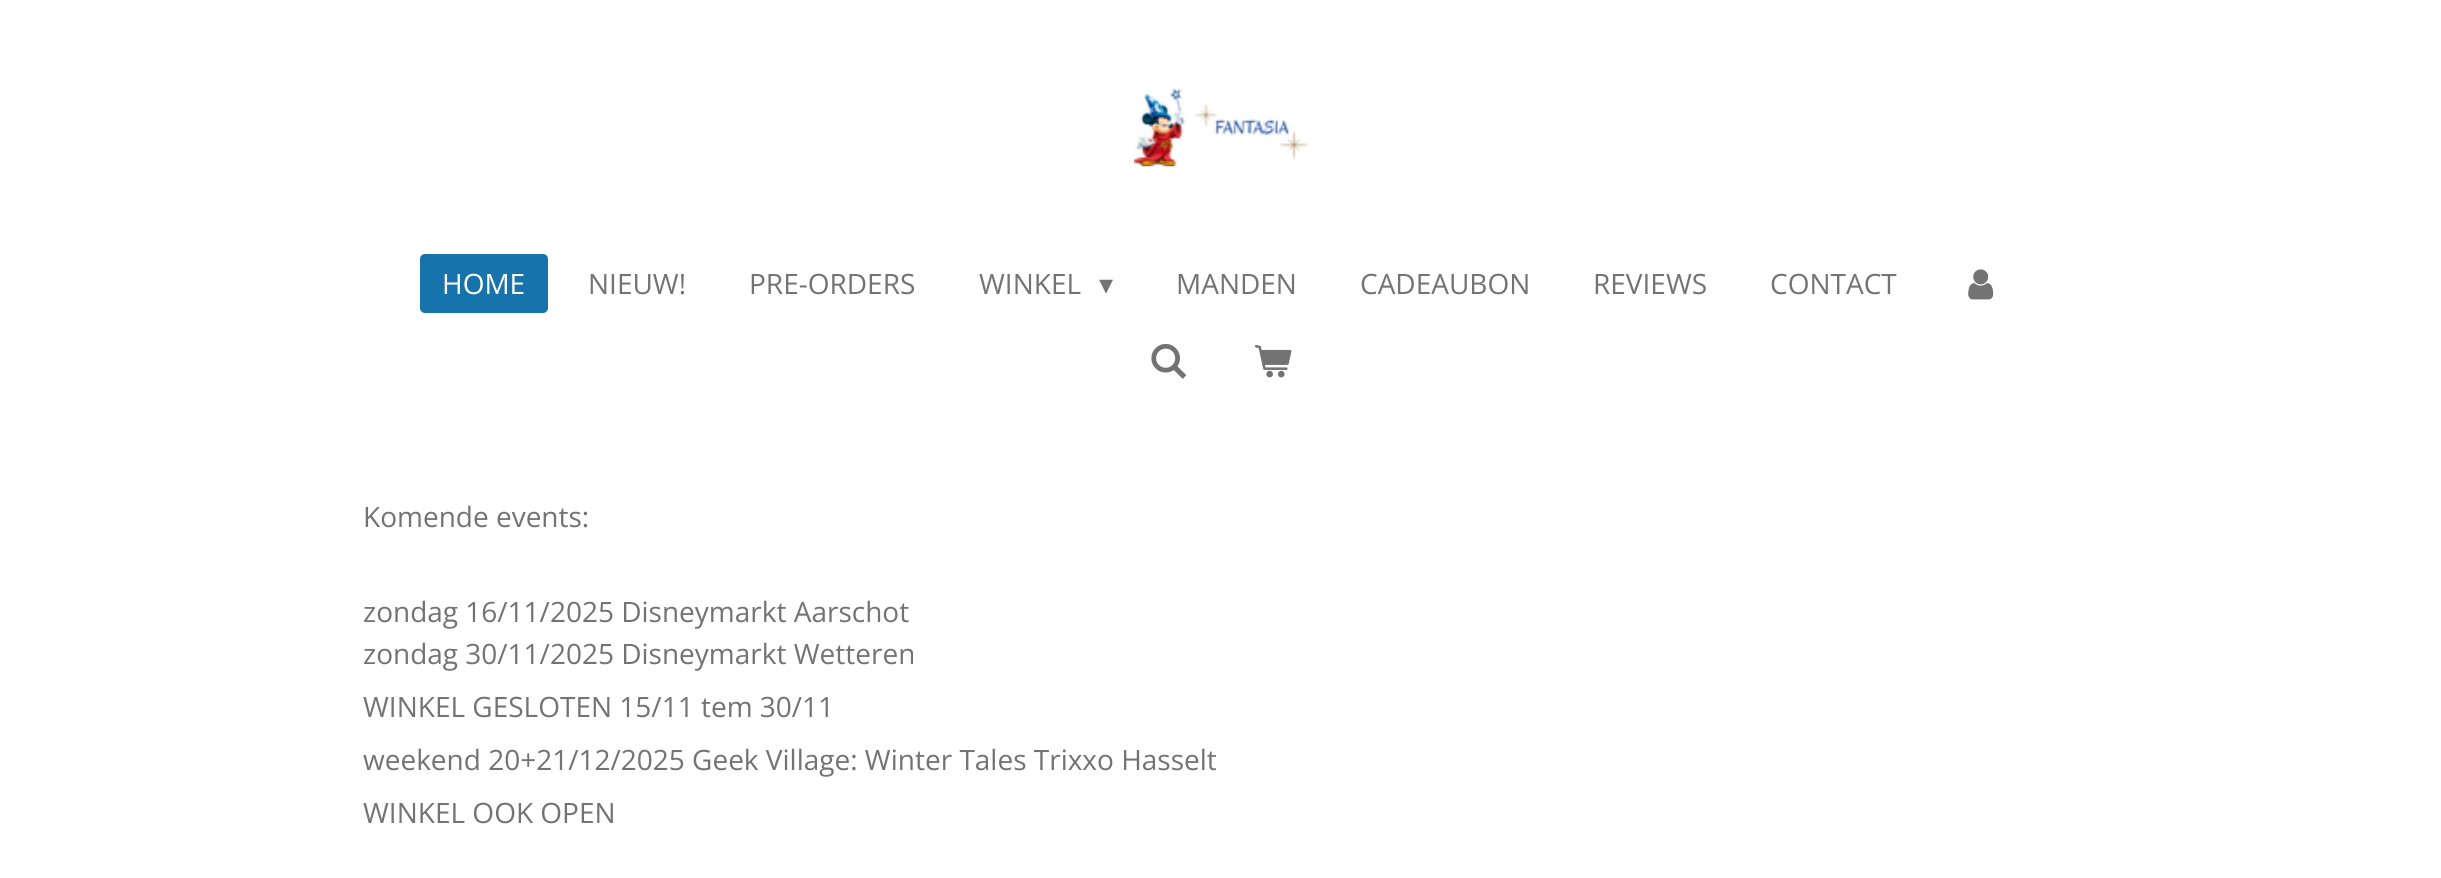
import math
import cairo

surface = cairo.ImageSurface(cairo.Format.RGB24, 2441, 878)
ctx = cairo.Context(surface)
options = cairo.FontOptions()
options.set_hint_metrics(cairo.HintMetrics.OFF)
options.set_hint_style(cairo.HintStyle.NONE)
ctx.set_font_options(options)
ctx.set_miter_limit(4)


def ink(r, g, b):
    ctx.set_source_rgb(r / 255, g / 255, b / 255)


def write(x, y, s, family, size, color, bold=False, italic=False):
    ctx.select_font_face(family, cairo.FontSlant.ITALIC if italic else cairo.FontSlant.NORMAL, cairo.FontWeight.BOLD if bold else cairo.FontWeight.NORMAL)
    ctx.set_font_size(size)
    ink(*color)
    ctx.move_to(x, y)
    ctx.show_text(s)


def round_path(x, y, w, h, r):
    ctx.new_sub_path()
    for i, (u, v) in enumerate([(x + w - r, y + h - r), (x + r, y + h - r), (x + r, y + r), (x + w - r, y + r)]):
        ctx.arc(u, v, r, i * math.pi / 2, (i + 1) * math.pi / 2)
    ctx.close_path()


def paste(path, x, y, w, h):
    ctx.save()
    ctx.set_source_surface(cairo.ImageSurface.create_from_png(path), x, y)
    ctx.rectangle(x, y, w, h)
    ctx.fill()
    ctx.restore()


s1 = dict(family="Open Sans", size=28, color=(255, 255, 255))
s2 = dict(family="Open Sans", size=28, color=(115, 115, 115))
s3 = dict(family="DejaVu Sans", size=28, color=(115, 115, 115))

ink(255, 255, 255)
ctx.paint()
paste("pic1.png", 1134, 88, 175, 79)
ink(23, 115, 172)
round_path(420, 254, 128, 59, 5)
ctx.fill()
write(442, 294, "HOME", **s1)
write(588, 294, "NIEUW!", **s2)
write(749, 294, "PRE-ORDERS", **s2)
write(979, 294, "WINKEL", **s2)
write(1099, 294, "▾", **s3)
write(1176, 294, "MANDEN", **s2)
write(1360, 294, "CADEAUBON", **s2)
write(1593, 294, "REVIEWS", **s2)
write(1770, 294, "CONTACT", **s2)
paste("pic2.png", 1968, 269, 26, 31)
paste("pic3.png", 1151, 343, 36, 36)
paste("pic4.png", 1254, 345, 38, 33)
write(363, 527, "Komende events:", **s2)
write(363, 622, "zondag 16/11/2025 Disneymarkt Aarschot", **s2)
write(363, 664, "zondag 30/11/2025 Disneymarkt Wetteren", **s2)
write(363, 717, "WINKEL GESLOTEN 15/11 tem 30/11", **s2)
write(363, 770, "weekend 20+21/12/2025 Geek Village: Winter Tales Trixxo Hasselt", **s2)
write(363, 823, "WINKEL OOK OPEN", **s2)
surface.write_to_png("screenshot.png")
